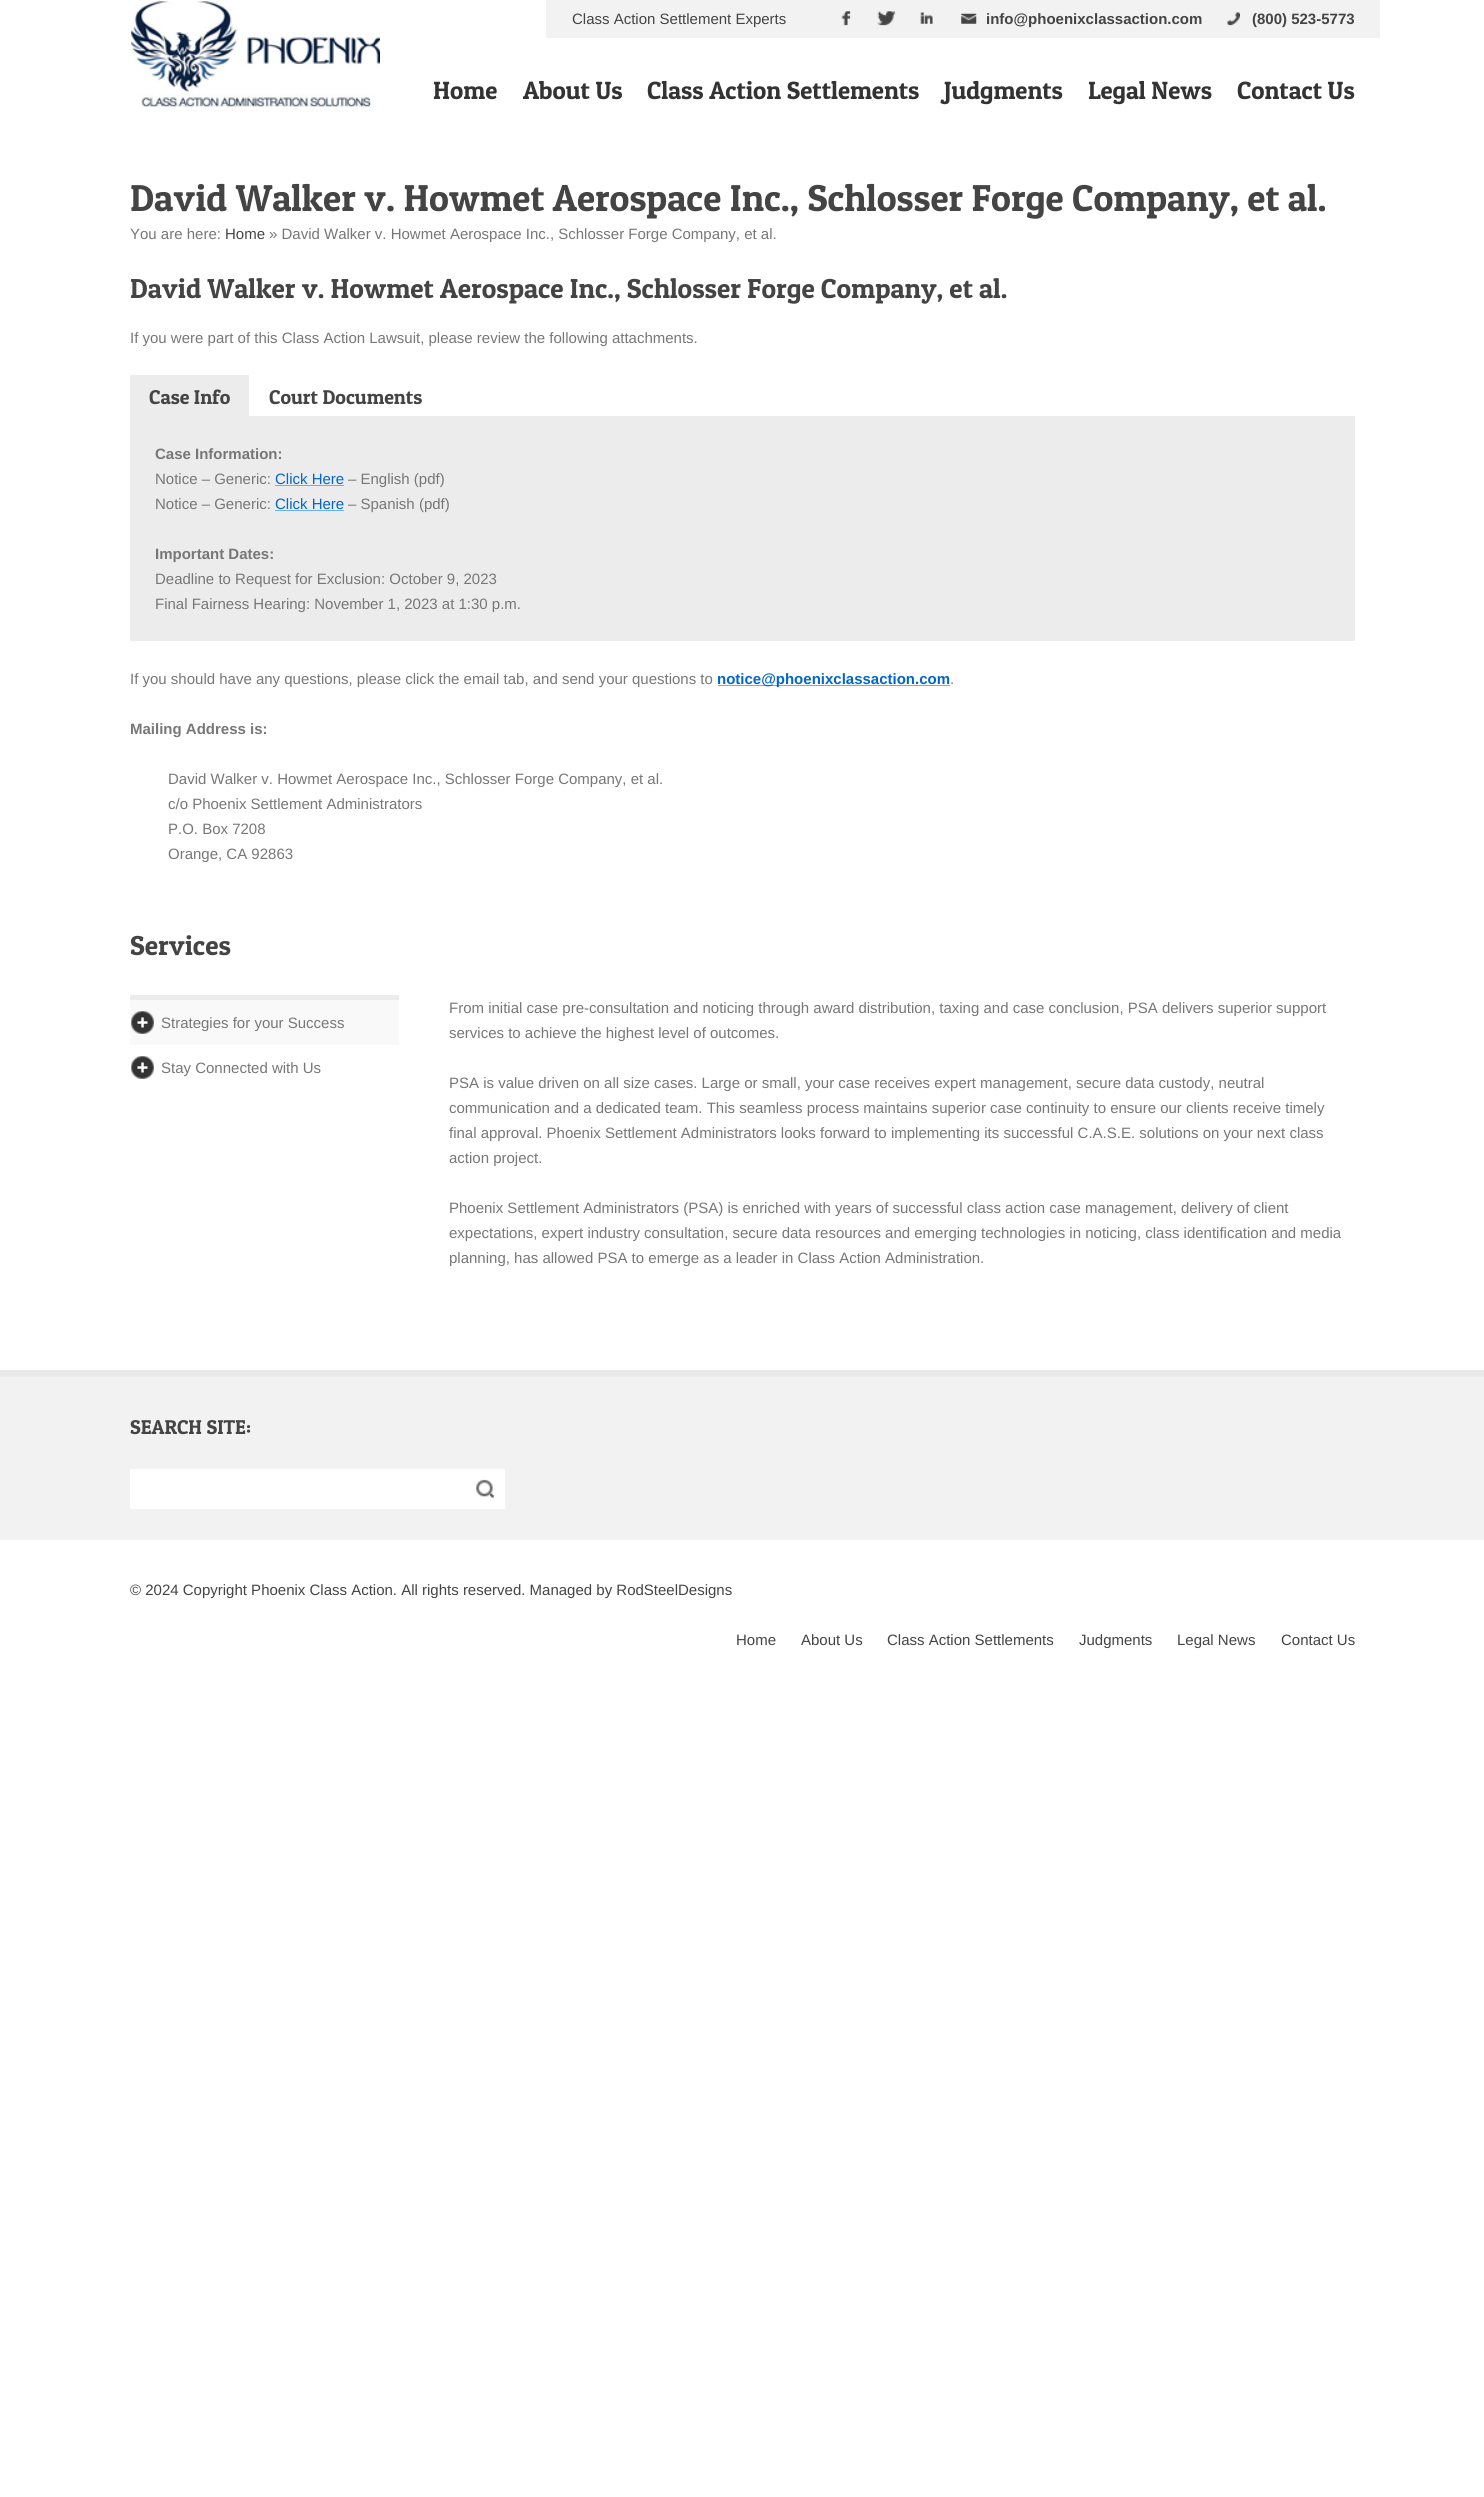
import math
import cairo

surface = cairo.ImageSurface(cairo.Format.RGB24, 1484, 2497)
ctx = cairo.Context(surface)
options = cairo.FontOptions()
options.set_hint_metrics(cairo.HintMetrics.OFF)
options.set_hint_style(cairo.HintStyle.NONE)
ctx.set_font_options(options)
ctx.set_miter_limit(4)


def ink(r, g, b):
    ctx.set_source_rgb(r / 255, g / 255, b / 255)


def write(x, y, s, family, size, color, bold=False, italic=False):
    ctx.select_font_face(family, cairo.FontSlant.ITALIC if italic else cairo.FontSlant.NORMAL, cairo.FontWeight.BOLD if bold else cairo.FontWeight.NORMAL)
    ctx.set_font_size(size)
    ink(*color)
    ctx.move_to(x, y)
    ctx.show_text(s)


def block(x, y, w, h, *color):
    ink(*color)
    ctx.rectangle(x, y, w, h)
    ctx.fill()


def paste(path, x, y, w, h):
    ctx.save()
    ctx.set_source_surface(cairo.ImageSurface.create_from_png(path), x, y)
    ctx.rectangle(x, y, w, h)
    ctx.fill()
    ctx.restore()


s1 = dict(family="Liberation Sans", size=15, color=(68, 68, 68))
s2 = dict(family="Liberation Sans", size=15, color=(68, 68, 68), bold=True)
s3 = dict(family="Patua One", size=25, color=(51, 51, 51))
s4 = dict(family="Patua One", size=37.5, color=(68, 68, 68))
s5 = dict(family="Liberation Sans", size=15, color=(119, 119, 119))
s6 = dict(family="Patua One", size=27.5, color=(68, 68, 68))
s7 = dict(family="Patua One", size=20, color=(68, 68, 68))
s8 = dict(family="Liberation Sans", size=15, color=(119, 119, 119), bold=True)
s9 = dict(family="Liberation Sans", size=15, color=(0, 102, 204))
s10 = dict(family="Liberation Sans", size=15, color=(0, 102, 204), bold=True)

ink(255, 255, 255)
ctx.paint()
paste("pic1.png", 131, 1, 249, 106)
block(546, 0, 834, 38, 242, 242, 242)
write(572, 24, "Class Action Settlement Experts", **s1)
paste("pic2.png", 841, 11, 10, 15)
paste("pic3.png", 877, 11, 19, 15)
paste("pic4.png", 920, 12, 13, 12)
paste("pic5.png", 961, 13, 16, 11)
write(986, 24, "info@phoenixclassaction.com", **s2)
paste("pic6.png", 1227, 12, 13, 14)
write(1252, 24, "(800) 523-5773", **s2)
write(433, 99, "Home", **s3)
write(523, 99, "About Us", **s3)
write(647, 99, "Class Action Settlements", **s3)
write(944, 99, "Judgments", **s3)
write(1088, 99, "Legal News", **s3)
write(1237, 99, "Contact Us", **s3)
write(130, 211, "David Walker v. Howmet Aerospace Inc., Schlosser Forge Company, et al.", **s4)
write(130, 239, "You are here:", **s5)
write(225, 239, "Home", **s1)
write(269, 239, "» David Walker v. Howmet Aerospace Inc., Schlosser Forge Company, et al.", **s5)
write(130, 298, "David Walker v. Howmet Aerospace Inc., Schlosser Forge Company, et al.", **s6)
write(130, 343, "If you were part of this Class Action Lawsuit, please review the following attachments.", **s5)
block(130, 375, 119, 41, 236, 236, 236)
write(149, 404, "Case Info", **s7)
write(269, 404, "Court Documents", **s7)
block(130, 416, 1225, 225, 236, 236, 236)
write(155, 459, "Case Information:", **s8)
write(155, 484, "Notice – Generic:", **s5)
write(275, 484, "Click Here", **s9)
block(275, 485, 69, 1, 103, 179, 227)
write(348, 484, "– English (pdf)", **s5)
write(155, 509, "Notice – Generic:", **s5)
write(275, 509, "Click Here", **s9)
block(275, 510, 69, 1, 103, 179, 227)
write(348, 509, "– Spanish (pdf)", **s5)
write(155, 559, "Important Dates:", **s8)
write(155, 584, "Deadline to Request for Exclusion: October 9, 2023", **s5)
write(155, 609, "Final Fairness Hearing: November 1, 2023 at 1:30 p.m.", **s5)
write(130, 684, "If you should have any questions, please click the email tab, and send your questions to", **s5)
block(718, 685, 232, 1, 103, 179, 227)
write(717, 684, "notice@phoenixclassaction.com", **s10)
write(950, 684, ".", **s5)
write(130, 734, "Mailing Address is:", **s8)
write(168, 784, "David Walker v. Howmet Aerospace Inc., Schlosser Forge Company, et al.", **s5)
write(168, 809, "c/o Phoenix Settlement Administrators", **s5)
write(168, 834, "P.O. Box 7208", **s5)
write(168, 859, "Orange, CA 92863", **s5)
write(130, 955, "Services", **s6)
block(130, 995, 269, 5, 236, 236, 236)
block(130, 1000, 269, 45, 249, 249, 249)
paste("pic7.png", 131, 1011, 23, 23)
write(161, 1028, "Strategies for your Success", **s5)
paste("pic8.png", 131, 1056, 23, 23)
write(161, 1073, "Stay Connected with Us", **s5)
write(449, 1013, "From initial case pre-consultation and noticing through award distribution, taxing and case conclusion, PSA delivers superior support", **s5)
write(449, 1038, "services to achieve the highest level of outcomes.", **s5)
write(449, 1088, "PSA is value driven on all size cases. Large or small, your case receives expert management, secure data custody, neutral", **s5)
write(449, 1113, "communication and a dedicated team. This seamless process maintains superior case continuity to ensure our clients receive timely", **s5)
write(449, 1138, "final approval. Phoenix Settlement Administrators looks forward to implementing its successful C.A.S.E. solutions on your next class", **s5)
write(449, 1163, "action project.", **s5)
write(449, 1213, "Phoenix Settlement Administrators (PSA) is enriched with years of successful class action case management, delivery of client", **s5)
write(449, 1238, "expectations, expert industry consultation, secure data resources and emerging technologies in noticing, class identification and media", **s5)
write(449, 1263, "planning, has allowed PSA to emerge as a leader in Class Action Administration.", **s5)
block(0, 1370, 1484, 170, 242, 242, 242)
paste("pic9.png", 0, 1370, 1484, 7)
write(130, 1434, "SEARCH SITE:", **s7)
block(130, 1469, 375, 40, 255, 255, 255)
paste("pic10.png", 476, 1479, 18, 19)
write(130, 1595, "© 2024 Copyright Phoenix Class Action. All rights reserved. Managed by RodSteelDesigns", **s1)
write(736, 1645, "Home", **s1)
write(801, 1645, "About Us", **s1)
write(887, 1645, "Class Action Settlements", **s1)
write(1079, 1645, "Judgments", **s1)
write(1177, 1645, "Legal News", **s1)
write(1281, 1645, "Contact Us", **s1)
surface.write_to_png("screenshot.png")
